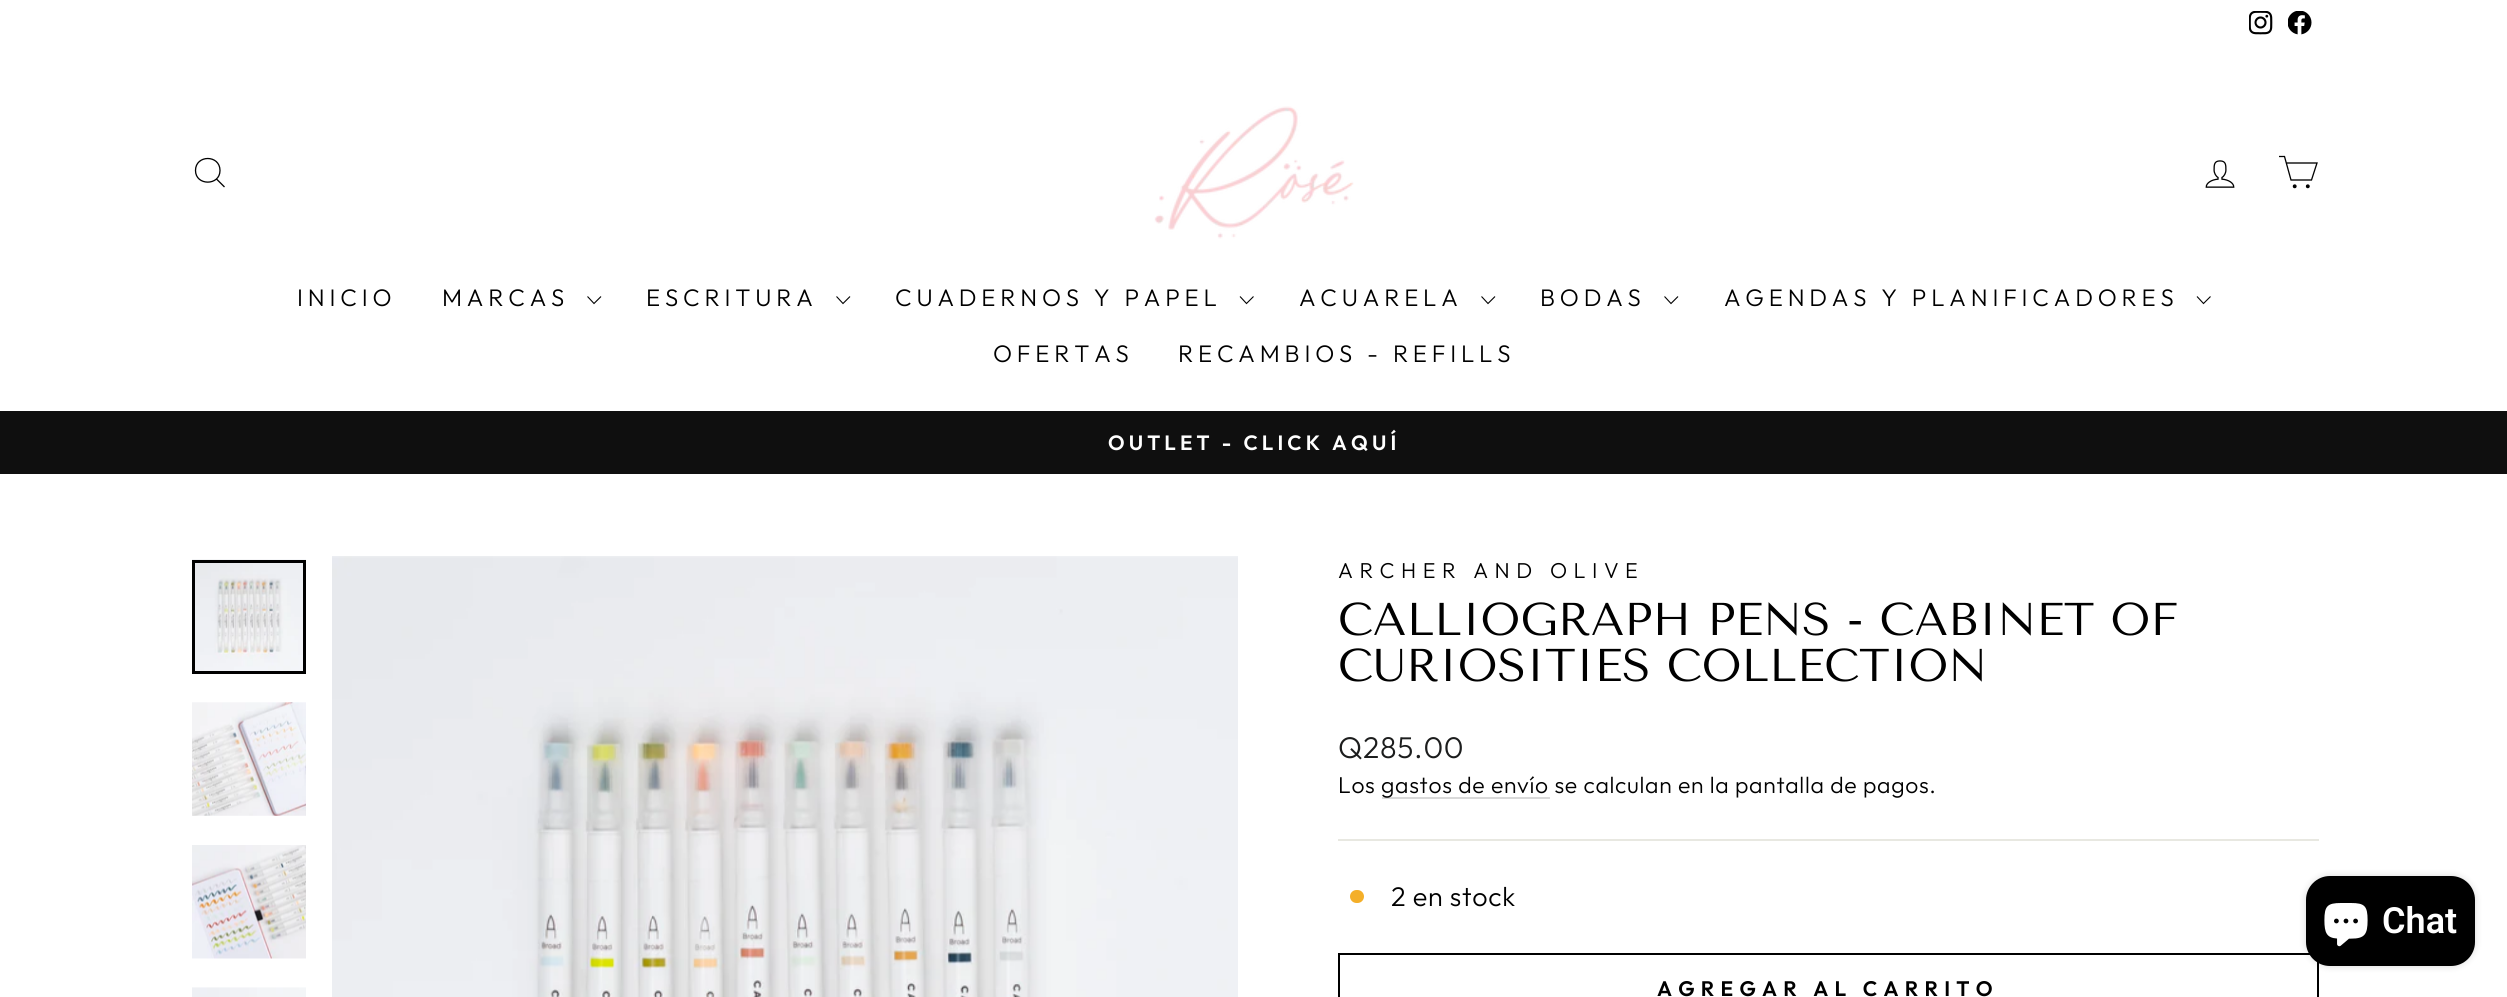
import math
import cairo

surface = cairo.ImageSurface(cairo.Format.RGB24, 2507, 997)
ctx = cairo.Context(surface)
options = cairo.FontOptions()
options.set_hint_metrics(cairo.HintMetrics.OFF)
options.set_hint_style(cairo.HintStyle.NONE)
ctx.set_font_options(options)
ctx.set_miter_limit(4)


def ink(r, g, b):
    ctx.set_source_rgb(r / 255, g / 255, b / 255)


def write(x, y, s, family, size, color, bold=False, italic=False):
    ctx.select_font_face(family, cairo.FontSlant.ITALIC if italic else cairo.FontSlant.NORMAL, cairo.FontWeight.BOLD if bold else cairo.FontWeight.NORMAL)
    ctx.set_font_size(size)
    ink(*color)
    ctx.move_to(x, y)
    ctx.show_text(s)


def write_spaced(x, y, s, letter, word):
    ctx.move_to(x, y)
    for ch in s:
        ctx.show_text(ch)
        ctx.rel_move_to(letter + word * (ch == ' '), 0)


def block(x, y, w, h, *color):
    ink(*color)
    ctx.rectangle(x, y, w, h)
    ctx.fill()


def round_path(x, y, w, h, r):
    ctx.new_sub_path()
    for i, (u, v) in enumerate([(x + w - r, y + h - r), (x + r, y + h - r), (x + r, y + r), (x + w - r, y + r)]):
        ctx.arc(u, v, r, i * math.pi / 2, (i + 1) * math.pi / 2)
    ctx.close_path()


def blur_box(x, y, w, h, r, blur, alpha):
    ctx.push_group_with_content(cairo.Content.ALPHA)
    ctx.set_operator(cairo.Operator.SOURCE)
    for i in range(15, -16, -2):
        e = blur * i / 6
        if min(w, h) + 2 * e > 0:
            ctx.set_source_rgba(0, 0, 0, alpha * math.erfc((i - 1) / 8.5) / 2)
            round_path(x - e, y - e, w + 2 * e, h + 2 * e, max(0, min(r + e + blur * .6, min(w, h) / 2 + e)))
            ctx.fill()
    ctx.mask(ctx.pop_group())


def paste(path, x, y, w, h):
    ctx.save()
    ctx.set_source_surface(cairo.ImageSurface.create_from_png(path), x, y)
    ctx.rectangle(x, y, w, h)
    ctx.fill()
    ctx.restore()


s1 = dict(family="Tenor Sans", size=45.9, color=(0, 0, 0))
s2 = dict(family="Roboto SemiBold", size=36, color=(255, 255, 255))

ink(255, 255, 255)
ctx.paint()
paste("pic1.png", 2249, 11, 24, 24)
paste("pic2.png", 2288, 11, 24, 24)
ctx.new_path()
ctx.move_to(220, 170.5)
ctx.curve_to(220, 186, 195.5, 186, 195.5, 170.5)
ctx.curve_to(195.5, 154.5, 220, 154.5, 220, 170.5)
ctx.close_path()
ctx.move_to(224.5, 187)
ctx.line_to(216.5, 179)
ink(0, 0, 0)
ctx.set_line_width(1.3)
ctx.stroke()
paste("pic3.png", 1154, 106, 200, 133)
paste("pic4.png", 2205, 160, 30, 28)
ctx.new_path()
ctx.move_to(2286, 163)
ctx.line_to(2317, 163)
ctx.line_to(2311.5, 180)
ctx.line_to(2291, 180)
ctx.line_to(2284.5, 156.5)
ctx.line_to(2279, 156.5)
ctx.stroke()
ctx.arc(2294.7, 186.3, 1.3, 0, 2 * math.pi)
ctx.fill_preserve()
ctx.stroke()
ctx.arc(2307.8, 186.3, 1.3, 0, 2 * math.pi)
ctx.fill_preserve()
ctx.stroke()
ctx.select_font_face("Outfit Light")
ctx.set_font_size(24)
write_spaced(297, 306, "INICIO", 4.8, 0)
write_spaced(442, 306, "MARCAS", 4.8, 0)
ctx.new_path()
ctx.move_to(587.5, 296.5)
ctx.line_to(594, 303.5)
ctx.line_to(601, 296.5)
ctx.set_line_width(1.1)
ctx.stroke()
write_spaced(646, 306, "ESCRITURA", 4.8, 0)
ctx.new_path()
ctx.move_to(836.5, 296.5)
ctx.line_to(843, 303.5)
ctx.line_to(850, 296.5)
ctx.stroke()
write_spaced(895, 306, "CUADERNOS Y PAPEL", 4.8, 0)
ctx.new_path()
ctx.move_to(1240, 296.5)
ctx.line_to(1246.5, 303.5)
ctx.line_to(1253.5, 296.5)
ctx.stroke()
write_spaced(1299, 306, "ACUARELA", 4.8, 0)
ctx.new_path()
ctx.move_to(1481.5, 296.5)
ctx.line_to(1488, 303.5)
ctx.line_to(1495, 296.5)
ctx.stroke()
write_spaced(1540, 306, "BODAS", 4.8, 0)
ctx.new_path()
ctx.move_to(1664.5, 296.5)
ctx.line_to(1671, 303.5)
ctx.line_to(1678, 296.5)
ctx.stroke()
write_spaced(1724, 306, "AGENDAS Y PLANIFICADORES", 4.8, 0)
ctx.new_path()
ctx.move_to(2197, 296.5)
ctx.line_to(2203.5, 303.5)
ctx.line_to(2210.5, 296.5)
ctx.stroke()
write_spaced(993, 362, "OFERTAS", 4.8, 0)
write_spaced(1178, 362, "RECAMBIOS - REFILLS", 4.8, 0)
block(0, 411, 2507, 63, 15, 15, 15)
ctx.select_font_face("Outfit SemiBold")
ctx.set_font_size(20.7)
ink(255, 255, 255)
write_spaced(1108, 450, "OUTLET - CLICK AQUÍ", 4.1, 0)
paste("pic5.png", 192, 559, 114, 112)
ctx.rectangle(193.5, 561.5, 111, 111)
ink(0, 0, 0)
ctx.set_line_width(3)
ctx.stroke()
paste("pic6.png", 192, 702, 114, 114)
paste("pic7.png", 192, 845, 114, 114)
paste("pic8.png", 192, 987, 114, 10)
paste("pic9.png", 332, 556, 906, 441)
ctx.select_font_face("Outfit Light")
ctx.set_font_size(21.6)
write_spaced(1338, 578, "ARCHER AND OLIVE", 6.5, 0)
write(1338, 635, "CALLIOGRAPH PENS - CABINET OF", **s1)
write(1338, 681, "CURIOSITIES COLLECTION", **s1)
ctx.select_font_face("Outfit Light")
ctx.set_font_size(30)
ink(28, 29, 29)
write_spaced(1338, 758, "Q285.00", 0.68, 0)
ctx.set_font_size(22.95)
ink(0, 0, 0)
write_spaced(1338, 793, "Los", 0.68, 0)
block(1382, 797, 168, 2, 217, 217, 217)
ink(0, 0, 0)
write_spaced(1381, 793, "gastos de envío se calculan en la pantalla de pagos.", 0.68, 0)
block(1338, 839, 981, 2, 232, 232, 225)
ink(244, 175, 41)
round_path(1350, 890, 14, 13, 6.5)
ctx.fill()
ctx.set_font_size(27)
ink(0, 0, 0)
write_spaced(1391, 906, "2 en stock", 0.68, 0)
ctx.rectangle(1339, 954, 979, 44)
ctx.set_line_width(2)
ctx.stroke()
ctx.select_font_face("Outfit SemiBold")
ctx.set_font_size(21)
write_spaced(1657, 996, "AGREGAR AL CARRITO", 6.25, 0)
ink(0, 0, 0)
blur_box(2306, 876, 169, 90, 24, 4, 0.15)
ink(0, 0, 0)
round_path(2306, 876, 169, 90, 24)
ctx.fill()
paste("pic10.png", 2324, 903, 44, 44)
write(2382, 933, "Chat", **s2)
surface.write_to_png("screenshot.png")
